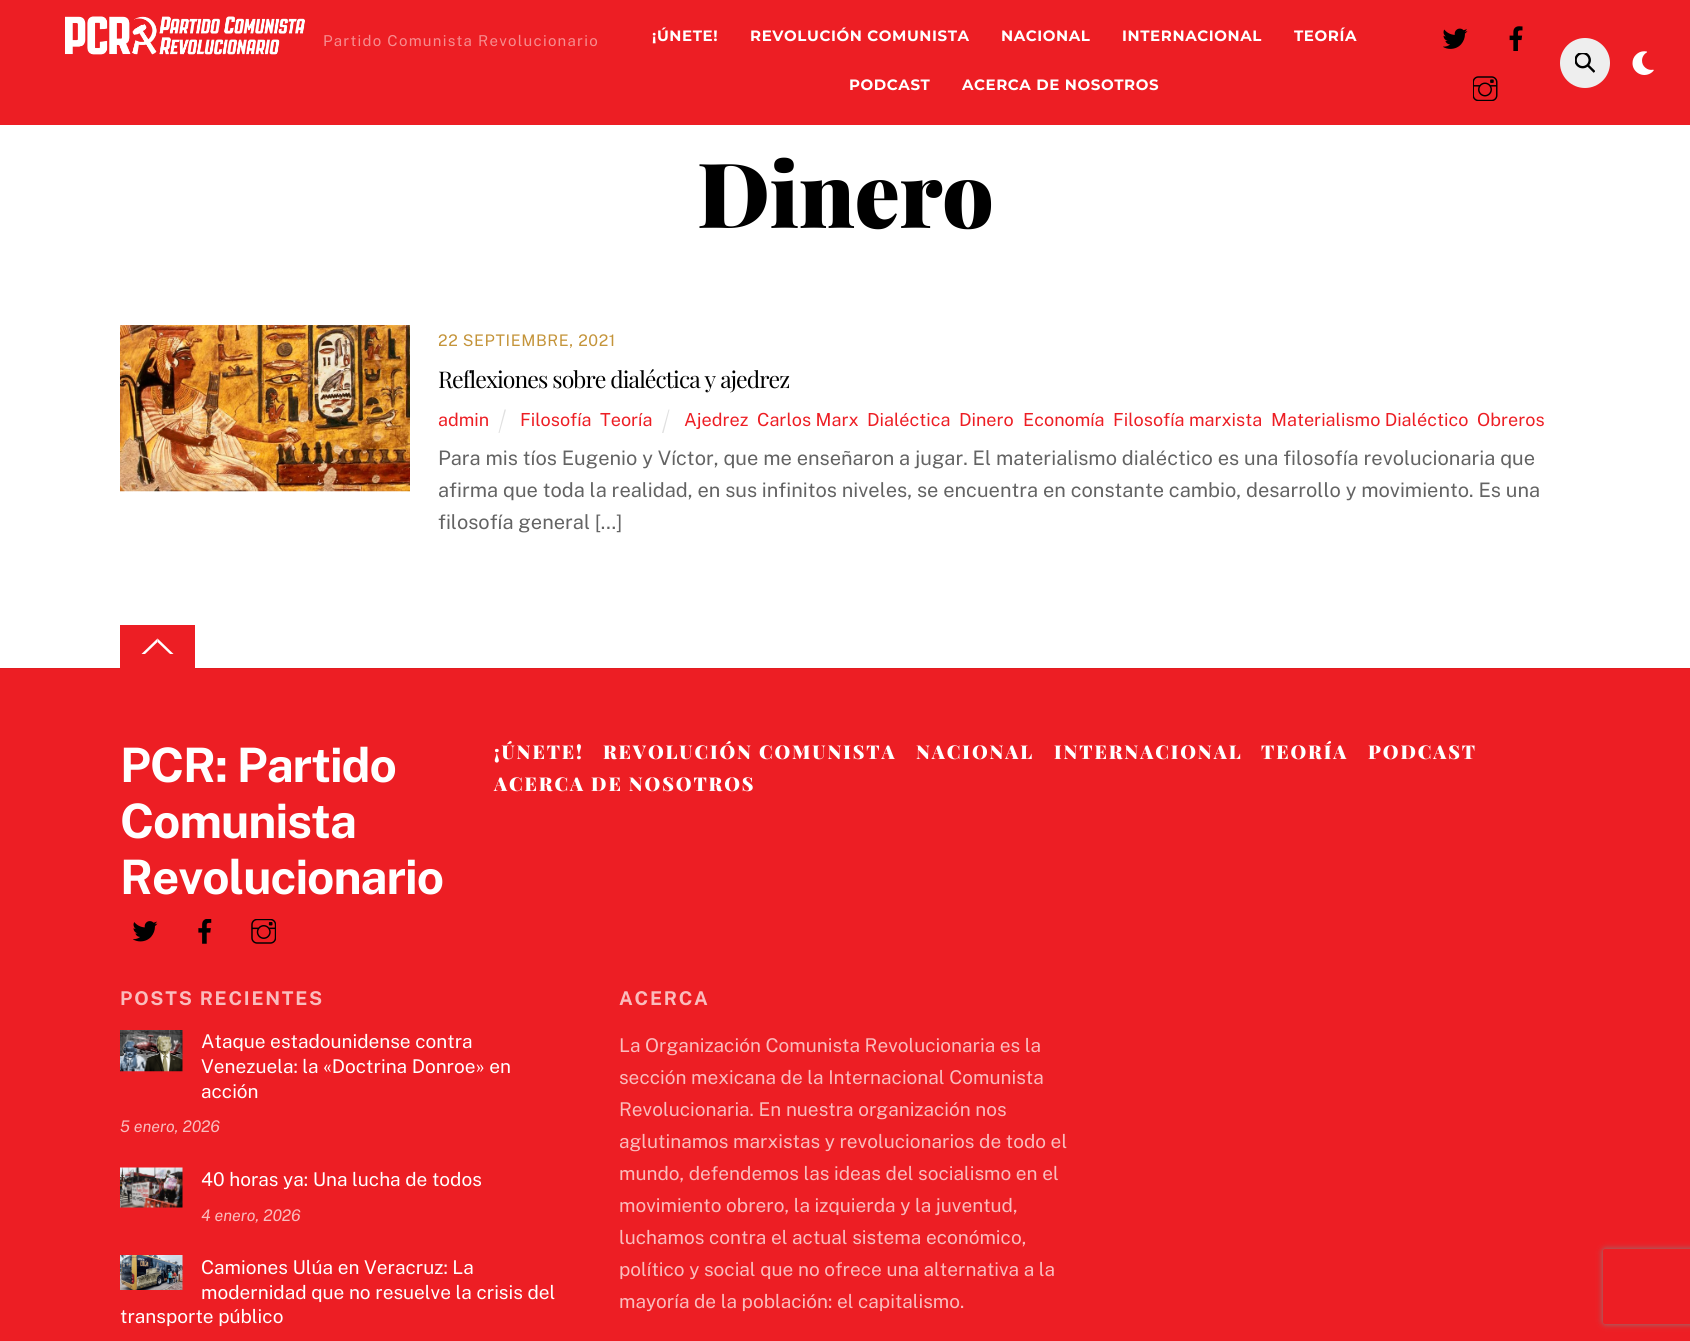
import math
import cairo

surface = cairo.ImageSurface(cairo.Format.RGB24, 1690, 1341)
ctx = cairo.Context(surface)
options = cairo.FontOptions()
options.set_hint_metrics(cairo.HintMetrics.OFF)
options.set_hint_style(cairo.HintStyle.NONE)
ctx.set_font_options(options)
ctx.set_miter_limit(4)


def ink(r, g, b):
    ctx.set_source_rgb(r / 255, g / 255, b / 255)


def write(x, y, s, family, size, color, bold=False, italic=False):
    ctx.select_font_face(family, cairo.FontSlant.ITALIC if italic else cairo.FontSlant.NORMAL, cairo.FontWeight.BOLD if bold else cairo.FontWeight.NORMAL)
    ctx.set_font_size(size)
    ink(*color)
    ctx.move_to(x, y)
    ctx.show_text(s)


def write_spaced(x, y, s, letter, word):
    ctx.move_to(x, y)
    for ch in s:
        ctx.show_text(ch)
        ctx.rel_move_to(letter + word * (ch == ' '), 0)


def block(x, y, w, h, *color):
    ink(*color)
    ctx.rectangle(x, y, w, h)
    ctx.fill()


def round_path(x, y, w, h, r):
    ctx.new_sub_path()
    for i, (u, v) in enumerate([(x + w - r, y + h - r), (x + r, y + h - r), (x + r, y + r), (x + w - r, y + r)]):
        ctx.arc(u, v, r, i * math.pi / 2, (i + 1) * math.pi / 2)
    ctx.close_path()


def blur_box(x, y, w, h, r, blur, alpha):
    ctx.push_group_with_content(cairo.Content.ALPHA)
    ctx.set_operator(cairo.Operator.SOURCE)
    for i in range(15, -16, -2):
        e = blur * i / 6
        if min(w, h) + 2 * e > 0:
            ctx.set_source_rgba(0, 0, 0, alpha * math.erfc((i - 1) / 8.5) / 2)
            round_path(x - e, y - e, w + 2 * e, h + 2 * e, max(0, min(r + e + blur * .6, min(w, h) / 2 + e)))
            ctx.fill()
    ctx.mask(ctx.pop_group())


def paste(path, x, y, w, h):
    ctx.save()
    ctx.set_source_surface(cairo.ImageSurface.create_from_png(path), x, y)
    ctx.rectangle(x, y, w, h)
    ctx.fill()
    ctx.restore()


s1 = dict(family="Public Sans", size=18, color=(237, 30, 36))
s2 = dict(family="Public Sans", size=20, color=(99, 99, 99))
s3 = dict(family="Public Sans", size=19, color=(255, 255, 255))
s4 = dict(family="Public Sans", size=16, color=(250, 188, 189), italic=True)
s5 = dict(family="Public Sans", size=19, color=(250, 188, 189))

ink(255, 255, 255)
ctx.paint()
block(0, 0, 1690, 125, 237, 30, 36)
paste("pic1.png", 65, 16, 240, 39)
ctx.select_font_face("Public Sans")
ctx.set_font_size(15)
ink(246, 141, 143)
write_spaced(323, 46, "Partido Comunista Revolucionario", 1.25, 0)
ctx.select_font_face("Montserrat", cairo.FontSlant.NORMAL, cairo.FontWeight.BOLD)
ink(255, 255, 255)
write_spaced(652, 41, "¡ÚNETE!", 0.6, 0)
write_spaced(750, 41, "REVOLUCIÓN COMUNISTA", 0.6, 0)
write_spaced(1001, 41, "NACIONAL", 0.6, 0)
write_spaced(1122, 41, "INTERNACIONAL", 0.6, 0)
write_spaced(1294, 41, "TEORÍA", 0.6, 0)
write_spaced(849, 90, "PODCAST", 0.6, 0)
write_spaced(962, 90, "ACERCA DE NOSOTROS", 0.6, 0)
paste("pic2.png", 1443, 28, 25, 21)
paste("pic3.png", 1509, 26, 14, 25)
paste("pic4.png", 1473, 76, 25, 25)
ink(238, 238, 238)
ctx.arc(1585, 63, 25, 0, 2 * math.pi)
ctx.fill()
paste("pic5.png", 1575, 53, 20, 20)
paste("pic6.png", 1632, 51, 22, 24)
ctx.select_font_face("Playfair Display Black")
ctx.set_font_size(90)
ink(0, 0, 0)
write_spaced(697, 228, "Dinero", -0.5, 0)
paste("pic7.png", 120, 325, 290, 167)
ctx.select_font_face("Public Sans")
ctx.set_font_size(16)
ink(196, 148, 58)
write_spaced(438, 346, "22 SEPTIEMBRE, 2021", 0.6, 0)
ctx.select_font_face("Playfair Display")
ctx.set_font_size(23)
ink(0, 0, 0)
write_spaced(438, 388, "Reflexiones sobre dialéctica y ajedrez", -0.9, 0)
write(438, 426, "admin", **s1)
ink(224, 224, 224)
ctx.new_path()
ctx.move_to(504.5, 409.5)
ctx.line_to(506, 409.5)
ctx.line_to(499.5, 433)
ctx.line_to(498.5, 433)
ctx.close_path()
ctx.fill()
write(520, 426, "Filosofía", **s1)
write(600, 426, "Teoría", **s1)
ink(224, 224, 224)
ctx.new_path()
ctx.move_to(668.5, 409.5)
ctx.line_to(669.5, 409.5)
ctx.line_to(663.5, 433)
ctx.line_to(662, 433)
ctx.close_path()
ctx.fill()
write(684, 426, "Ajedrez", **s1)
write(757, 426, "Carlos Marx", **s1)
write(867, 426, "Dialéctica", **s1)
write(959, 426, "Dinero", **s1)
write(1023, 426, "Economía", **s1)
write(1113, 426, "Filosofía marxista", **s1)
write(1271, 426, "Materialismo Dialéctico", **s1)
write(1477, 426, "Obreros", **s1)
write(438, 465, "Para mis tíos Eugenio y Víctor, que me enseñaron a jugar. El materialismo dialéctico es una filosofía revolucionaria que", **s2)
write(438, 497, "afirma que toda la realidad, en sus infinitos niveles, se encuentra en constante cambio, desarrollo y movimiento. Es una", **s2)
write(438, 529, "filosofía general […]", **s2)
block(0, 669, 1690, 672, 237, 30, 36)
block(0, 668, 1690, 1, 225, 29, 34)
block(120, 625, 75, 44, 237, 30, 36)
ink(255, 255, 255)
ctx.new_path()
ctx.move_to(157.5, 638.5)
ctx.line_to(173.5, 654)
ctx.line_to(170, 654)
ctx.line_to(157.5, 642)
ctx.close_path()
ctx.fill()
ctx.new_path()
ctx.move_to(141.5, 654)
ctx.line_to(157.5, 638.5)
ctx.line_to(157.5, 642)
ctx.line_to(145, 654)
ctx.close_path()
ctx.fill()
ctx.select_font_face("Public Sans", cairo.FontSlant.NORMAL, cairo.FontWeight.BOLD)
ctx.set_font_size(47.5)
write_spaced(120, 782, "PCR: Partido", -1, 0)
write_spaced(120, 838, "Comunista", -1, 0)
write_spaced(120, 894, "Revolucionario", -1, 0)
paste("pic8.png", 133, 921, 25, 21)
paste("pic9.png", 198, 919, 14, 25)
paste("pic10.png", 251, 919, 25, 25)
ctx.select_font_face("Playfair Display Black")
ctx.set_font_size(19)
write_spaced(494, 759, "¡ÚNETE!", 1.9, 0)
write_spaced(603, 759, "REVOLUCIÓN COMUNISTA", 1.9, 0)
write_spaced(916, 759, "NACIONAL", 1.9, 0)
write_spaced(1054, 759, "INTERNACIONAL", 1.9, 0)
write_spaced(1261, 759, "TEORÍA", 1.9, 0)
write_spaced(1368, 759, "PODCAST", 1.9, 0)
write_spaced(494, 791, "ACERCA DE NOSOTROS", 1.9, 0)
ctx.select_font_face("Public Sans", cairo.FontSlant.NORMAL, cairo.FontWeight.BOLD)
ink(250, 188, 189)
write_spaced(120, 1005, "POSTS RECIENTES", 1.75, 0)
paste("pic11.png", 120, 1030, 63, 42)
write(201, 1048, "Ataque estadounidense contra", **s3)
write(201, 1073, "Venezuela: la «Doctrina Donroe» en", **s3)
write(201, 1098, "acción", **s3)
write(120, 1132, "5 enero, 2026", **s4)
paste("pic12.png", 120, 1167, 63, 41)
write(201, 1186, "40 horas ya: Una lucha de todos", **s3)
write(201, 1221, "4 enero, 2026", **s4)
paste("pic13.png", 120, 1255, 63, 35)
write(201, 1274, "Camiones Ulúa en Veracruz: La", **s3)
write(201, 1299, "modernidad que no resuelve la crisis del", **s3)
write(120, 1323, "transporte público", **s3)
ctx.select_font_face("Public Sans", cairo.FontSlant.NORMAL, cairo.FontWeight.BOLD)
ink(250, 188, 189)
write_spaced(619, 1005, "ACERCA", 1.75, 0)
write(619, 1052, "La Organización Comunista Revolucionaria es la", **s5)
write(619, 1084, "sección mexicana de la Internacional Comunista", **s5)
write(619, 1116, "Revolucionaria. En nuestra organización nos", **s5)
write(619, 1148, "aglutinamos marxistas y revolucionarios de todo el", **s5)
write(619, 1180, "mundo, defendemos las ideas del socialismo en el", **s5)
write(619, 1212, "movimiento obrero, la izquierda y la juventud,", **s5)
write(619, 1244, "luchamos contra el actual sistema económico,", **s5)
write(619, 1276, "político y social que no ofrece una alternativa a la", **s5)
write(619, 1308, "mayoría de la población: el capitalismo.", **s5)
ctx.save()
ctx.set_fill_rule(cairo.FillRule.EVEN_ODD)
ctx.new_path()
ctx.move_to(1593, 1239)
ctx.line_to(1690, 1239)
ctx.line_to(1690, 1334)
ctx.line_to(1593, 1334)
ctx.close_path()
ctx.move_to(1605.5, 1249)
ctx.line_to(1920.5, 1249)
ctx.curve_to(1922, 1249, 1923, 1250, 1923, 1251.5)
ctx.line_to(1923, 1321.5)
ctx.curve_to(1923, 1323, 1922, 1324, 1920.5, 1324)
ctx.line_to(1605.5, 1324)
ctx.curve_to(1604, 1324, 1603, 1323, 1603, 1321.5)
ctx.line_to(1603, 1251.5)
ctx.curve_to(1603, 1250, 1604, 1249, 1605.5, 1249)
ctx.close_path()
ctx.clip()
ink(128, 128, 128)
blur_box(1603, 1249, 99, 75, 2.5, 3, 1)
ctx.restore()
surface.write_to_png("screenshot.png")
